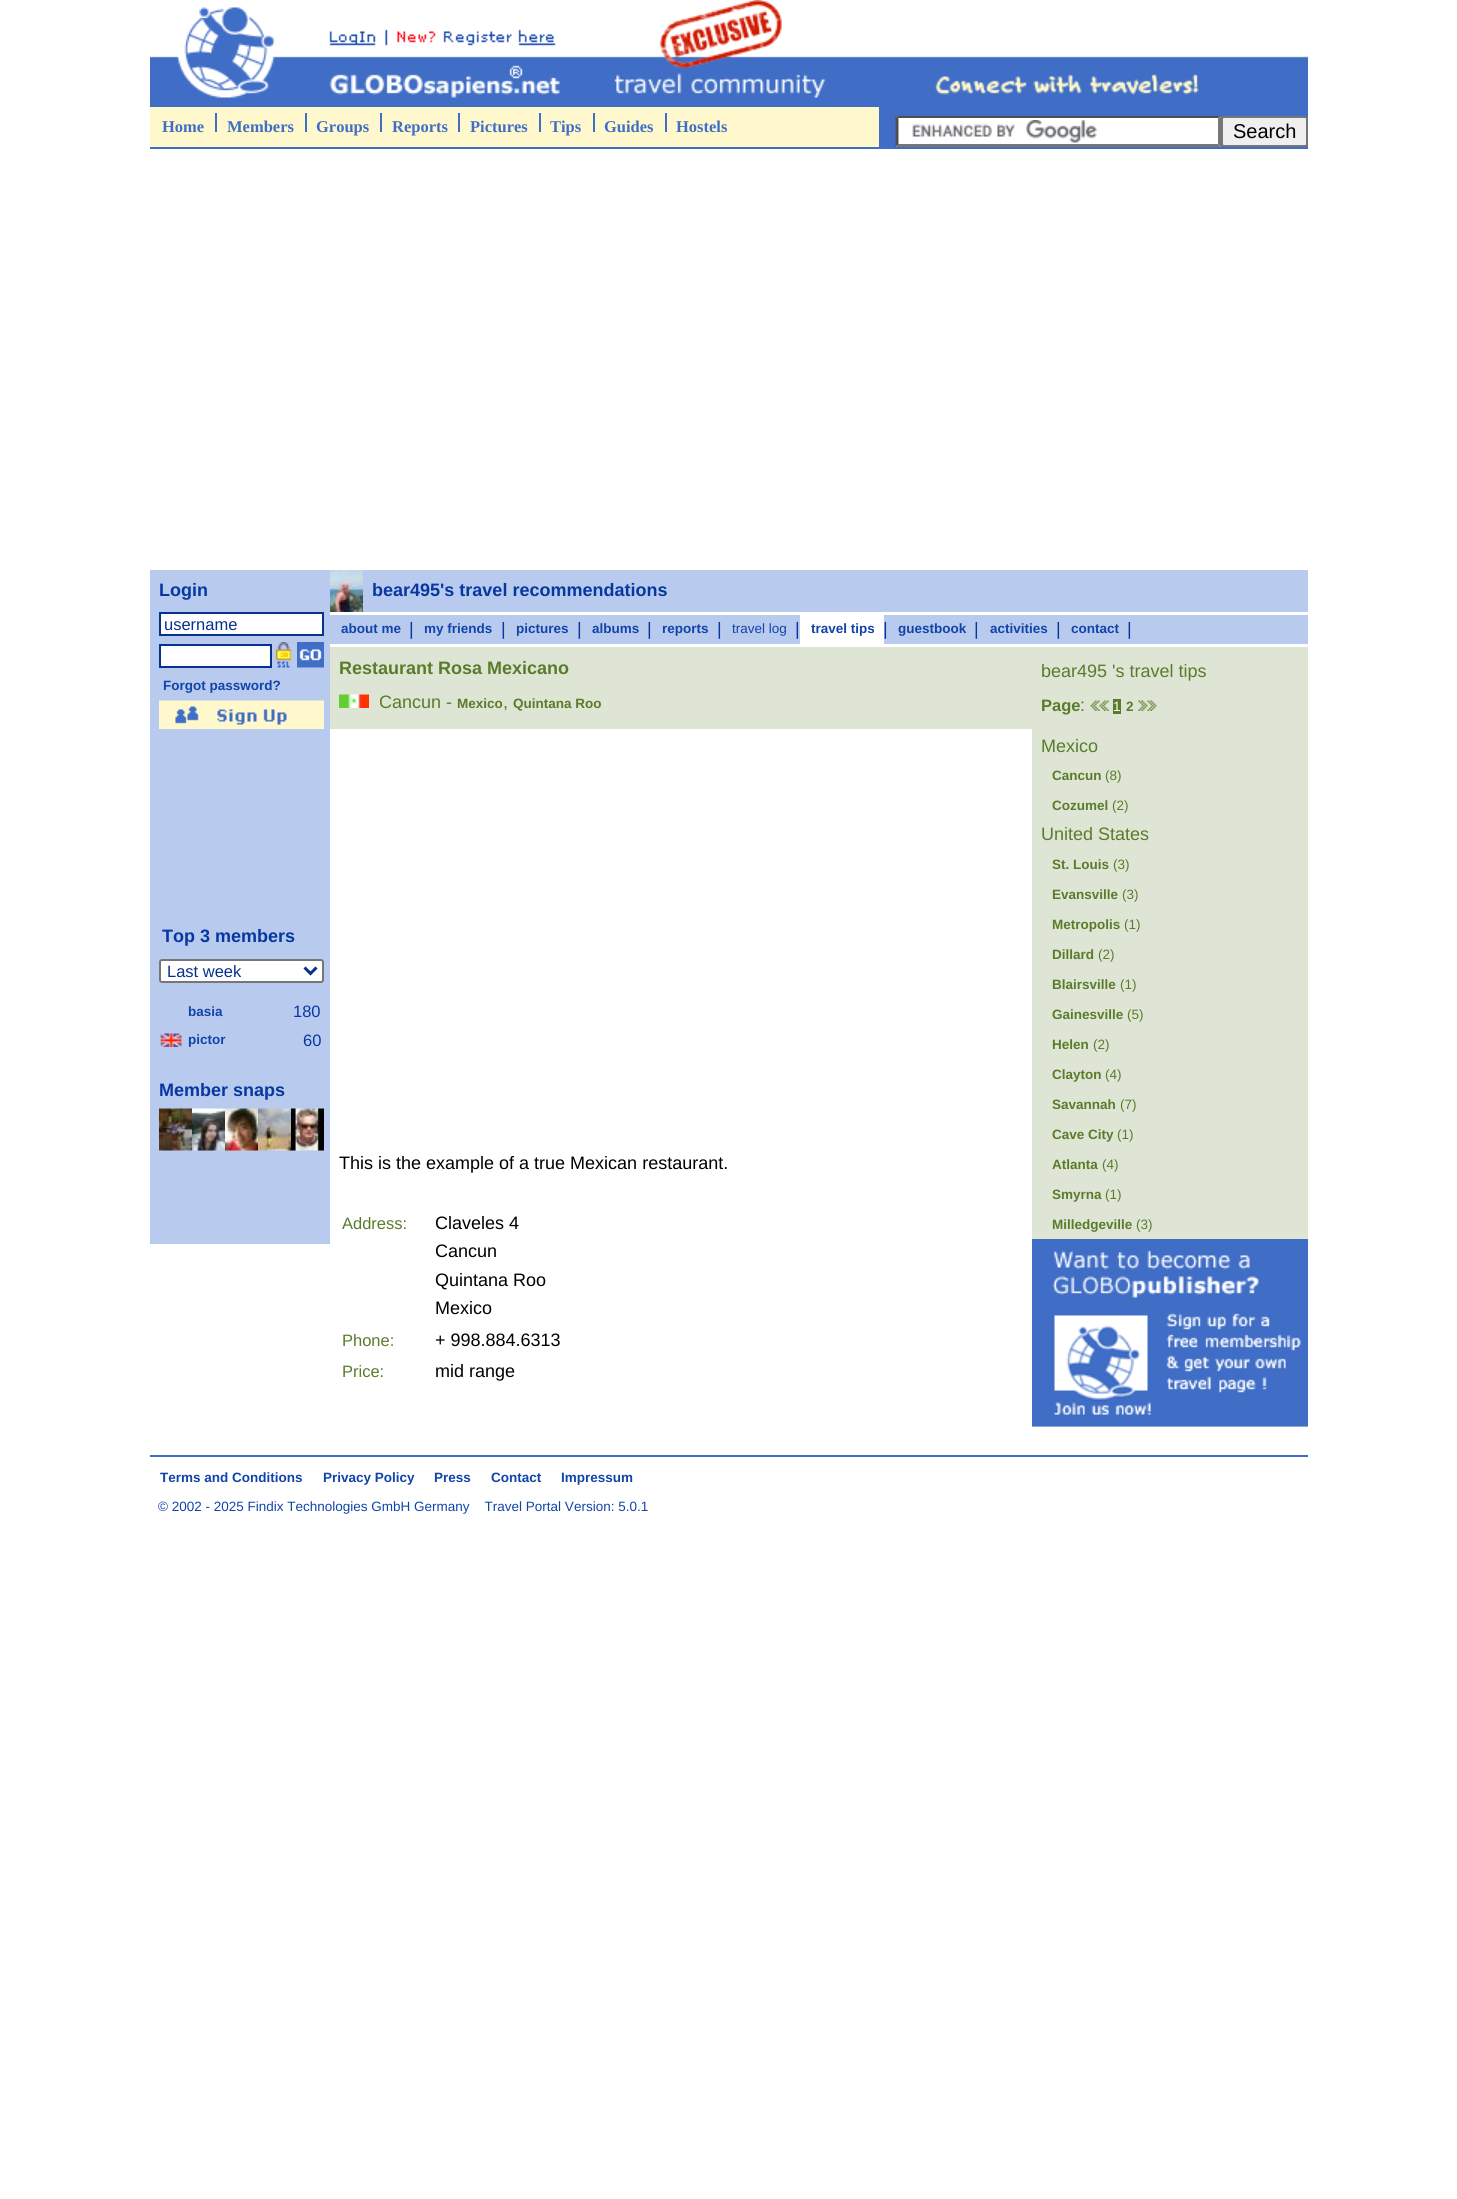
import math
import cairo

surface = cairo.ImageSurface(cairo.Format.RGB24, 1457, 2199)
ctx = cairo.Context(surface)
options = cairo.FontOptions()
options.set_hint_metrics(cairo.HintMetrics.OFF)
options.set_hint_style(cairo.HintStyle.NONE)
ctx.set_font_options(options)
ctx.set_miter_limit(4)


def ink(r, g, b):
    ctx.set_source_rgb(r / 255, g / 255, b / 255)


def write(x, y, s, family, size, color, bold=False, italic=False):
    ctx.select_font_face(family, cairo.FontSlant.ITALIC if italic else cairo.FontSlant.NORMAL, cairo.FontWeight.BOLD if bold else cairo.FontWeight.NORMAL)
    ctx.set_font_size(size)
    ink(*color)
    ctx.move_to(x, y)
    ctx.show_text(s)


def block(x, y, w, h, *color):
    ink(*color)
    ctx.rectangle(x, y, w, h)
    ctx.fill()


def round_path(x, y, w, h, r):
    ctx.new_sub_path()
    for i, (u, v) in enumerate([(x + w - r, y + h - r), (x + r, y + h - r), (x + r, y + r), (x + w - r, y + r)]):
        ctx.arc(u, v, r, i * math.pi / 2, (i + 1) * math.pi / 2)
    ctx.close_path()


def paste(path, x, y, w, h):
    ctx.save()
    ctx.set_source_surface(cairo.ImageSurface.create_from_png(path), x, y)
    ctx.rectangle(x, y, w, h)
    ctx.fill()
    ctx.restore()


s1 = dict(family="Liberation Serif", size=16.5, color=(64, 110, 198), bold=True)
s2 = dict(family="Liberation Sans", size=20, color=(0, 0, 0))
s3 = dict(family="Liberation Sans", size=18, color=(7, 55, 161), bold=True)
s4 = dict(family="Liberation Sans", size=16.5, color=(8, 49, 140))
s5 = dict(family="Liberation Sans", size=13.5, color=(17, 68, 170), bold=True)
s6 = dict(family="Liberation Sans", size=16.5, color=(7, 55, 161))
s7 = dict(family="Liberation Sans", size=18, color=(7, 55, 161))
s8 = dict(family="Liberation Sans", size=13.5, color=(17, 68, 170))
s9 = dict(family="Liberation Sans", size=18, color=(90, 124, 42), bold=True)
s10 = dict(family="Liberation Sans", size=18, color=(90, 124, 42))
s11 = dict(family="Liberation Sans", size=13.5, color=(90, 124, 42), bold=True)
s12 = dict(family="Liberation Sans", size=18, color=(0, 0, 0))
s13 = dict(family="Liberation Sans", size=16.5, color=(90, 124, 42))
s14 = dict(family="Liberation Sans", size=16.5, color=(90, 124, 42), bold=True)
s15 = dict(family="Liberation Sans", size=13.5, color=(255, 255, 255))
s16 = dict(family="Liberation Sans", size=13.5, color=(90, 124, 42))

ink(255, 255, 255)
ctx.paint()
paste("pic1.png", 150, 0, 1158, 105)
block(150, 105, 1158, 44, 64, 110, 198)
block(150, 107, 729, 40, 255, 248, 204)
write(162, 132, "Home", **s1)
block(215, 113, 2, 19, 64, 110, 198)
write(227, 132, "Members", **s1)
block(305, 113, 2, 19, 64, 110, 198)
write(316, 132, "Groups", **s1)
block(380, 113, 2, 19, 64, 110, 198)
write(392, 132, "Reports", **s1)
block(458, 113, 2, 19, 64, 110, 198)
write(470, 132, "Pictures", **s1)
block(539, 113, 2, 19, 64, 110, 198)
write(550, 132, "Tips", **s1)
block(593, 113, 2, 19, 64, 110, 198)
write(604, 132, "Guides", **s1)
block(665, 113, 2, 19, 64, 110, 198)
write(676, 132, "Hostels", **s1)
block(896, 116, 325, 31, 255, 255, 255)
paste("pic2.png", 912, 120, 185, 23)
ink(79, 79, 79)
ctx.new_path()
ctx.move_to(896, 116)
ctx.line_to(1221, 116)
ctx.line_to(1218, 118)
ctx.line_to(898, 118)
ctx.close_path()
ctx.fill()
ink(118, 118, 118)
ctx.new_path()
ctx.move_to(1221, 115.5)
ctx.line_to(1221, 147)
ctx.line_to(1218, 144)
ctx.line_to(1218, 118.5)
ctx.close_path()
ctx.fill()
ctx.new_path()
ctx.move_to(1221, 147)
ctx.line_to(896, 147)
ctx.line_to(898, 144)
ctx.line_to(1218, 144)
ctx.close_path()
ctx.fill()
ink(79, 79, 79)
ctx.new_path()
ctx.move_to(895.5, 147)
ctx.line_to(895.5, 115.5)
ctx.line_to(898.5, 118.5)
ctx.line_to(898.5, 144)
ctx.close_path()
ctx.fill()
ink(239, 239, 239)
round_path(1222, 117, 85, 29, 2)
ctx.fill_preserve()
ink(118, 118, 118)
ctx.stroke()
write(1233, 138, "Search", **s2)
block(150, 570, 180, 674, 184, 202, 238)
write(159, 596, "Login", **s3)
ink(255, 255, 255)
ctx.rectangle(160, 613, 163, 22)
ctx.fill_preserve()
ink(8, 49, 140)
ctx.stroke()
write(164, 630, "username", **s4)
ink(255, 255, 255)
ctx.rectangle(160, 645, 111, 22)
ctx.fill_preserve()
ink(8, 49, 140)
ctx.stroke()
paste("pic3.png", 276, 642, 15, 26)
paste("pic4.png", 297, 642, 27, 26)
write(163, 690, "Forgot password?", **s5)
paste("pic5.png", 159, 700, 165, 29)
write(162, 942, "Top 3 members", **s3)
ink(255, 255, 255)
round_path(160, 960, 163, 22, 2)
ctx.fill_preserve()
ink(118, 118, 118)
ctx.stroke()
ctx.new_path()
ctx.move_to(304.5, 967.5)
ctx.line_to(310.5, 973.5)
ctx.line_to(316.5, 967.5)
ink(8, 49, 140)
ctx.set_line_width(3)
ctx.stroke()
write(167, 977, "Last week", **s4)
write(188, 1016, "basia", **s5)
write(293, 1017, "180", **s6)
paste("pic6.png", 160, 1033, 22, 14)
write(188, 1044, "pictor", **s5)
write(303, 1046, "60", **s6)
write(159, 1096, "Member snaps", **s3)
paste("pic7.png", 159, 1108, 33, 43)
paste("pic8.png", 192, 1108, 33, 43)
paste("pic9.png", 225, 1108, 33, 43)
paste("pic10.png", 258, 1108, 33, 43)
paste("pic11.png", 291, 1108, 33, 43)
block(363, 570, 945, 42, 184, 202, 238)
paste("pic12.png", 330, 570, 33, 42)
write(372, 596, "bear495's travel recommendations", **s3)
block(330, 615, 978, 29, 184, 202, 238)
write(341, 633, "about me", **s5)
write(409, 635, "|", **s7)
write(424, 633, "my friends", **s5)
write(501, 635, "|", **s7)
write(516, 633, "pictures", **s5)
write(577, 635, "|", **s7)
write(592, 633, "albums", **s5)
write(647, 635, "|", **s7)
write(662, 633, "reports", **s5)
write(717, 635, "|", **s7)
write(732, 633, "travel log", **s8)
write(795, 635, "|", **s7)
block(800, 615, 84, 29, 255, 255, 255)
write(811, 633, "travel tips", **s5)
write(883, 635, "|", **s7)
write(898, 633, "guestbook", **s5)
write(974, 635, "|", **s7)
write(990, 633, "activities", **s5)
write(1056, 635, "|", **s7)
write(1071, 633, "contact", **s5)
write(1127, 635, "|", **s7)
block(330, 647, 702, 82, 222, 229, 213)
write(339, 674, "Restaurant Rosa Mexicano", **s9)
paste("pic13.png", 339, 694, 30, 14)
write(379, 708, "Cancun -", **s10)
write(457, 708, "Mexico", **s11)
write(503, 708, ",", **s10)
write(513, 708, "Quintana Roo", **s11)
write(339, 1169, "This is the example of a true Mexican restaurant.", **s12)
write(342, 1229, "Address:", **s13)
write(435, 1229, "Claveles 4", **s12)
write(435, 1257, "Cancun", **s12)
write(435, 1286, "Quintana Roo", **s12)
write(435, 1314, "Mexico", **s12)
write(342, 1346, "Phone:", **s13)
write(435, 1346, "+ 998.884.6313", **s12)
write(342, 1377, "Price:", **s13)
write(435, 1377, "mid range", **s12)
block(1032, 647, 276, 780, 222, 229, 213)
write(1041, 677, "bear495 's travel tips", **s10)
write(1041, 711, "Page", **s14)
write(1080, 711, ":", **s10)
paste("pic14.png", 1090, 700, 19, 11)
block(1113, 699, 8, 15, 90, 124, 42)
write(1113, 711, "1", **s15)
write(1126, 711, "2", **s11)
paste("pic15.png", 1138, 700, 19, 11)
write(1041, 752, "Mexico", **s10)
write(1052, 780, "Cancun", **s11)
write(1105, 780, "(8)", **s16)
write(1052, 810, "Cozumel", **s11)
write(1112, 810, "(2)", **s16)
write(1041, 840, "United States", **s10)
write(1052, 869, "St. Louis", **s11)
write(1113, 869, "(3)", **s16)
write(1052, 899, "Evansville", **s11)
write(1122, 899, "(3)", **s16)
write(1052, 929, "Metropolis", **s11)
write(1124, 929, "(1)", **s16)
write(1052, 959, "Dillard", **s11)
write(1098, 959, "(2)", **s16)
write(1052, 989, "Blairsville", **s11)
write(1120, 989, "(1)", **s16)
write(1052, 1019, "Gainesville", **s11)
write(1127, 1019, "(5)", **s16)
write(1052, 1049, "Helen", **s11)
write(1093, 1049, "(2)", **s16)
write(1052, 1079, "Clayton", **s11)
write(1105, 1079, "(4)", **s16)
write(1052, 1109, "Savannah", **s11)
write(1120, 1109, "(7)", **s16)
write(1052, 1139, "Cave City", **s11)
write(1117, 1139, "(1)", **s16)
write(1052, 1169, "Atlanta", **s11)
write(1102, 1169, "(4)", **s16)
write(1052, 1199, "Smyrna", **s11)
write(1105, 1199, "(1)", **s16)
write(1052, 1229, "Milledgeville", **s11)
write(1136, 1229, "(3)", **s16)
paste("pic16.png", 1032, 1239, 276, 188)
block(150, 1455, 1158, 2, 64, 110, 198)
write(160, 1482, "Terms and Conditions", **s5)
write(323, 1482, "Privacy Policy", **s5)
write(434, 1482, "Press", **s5)
write(491, 1482, "Contact", **s5)
write(561, 1482, "Impressum", **s5)
write(158, 1511, "© 2002 - 2025 Findix Technologies GmbH Germany    Travel Portal Version: 5.0.1", **s8)
surface.write_to_png("screenshot.png")
